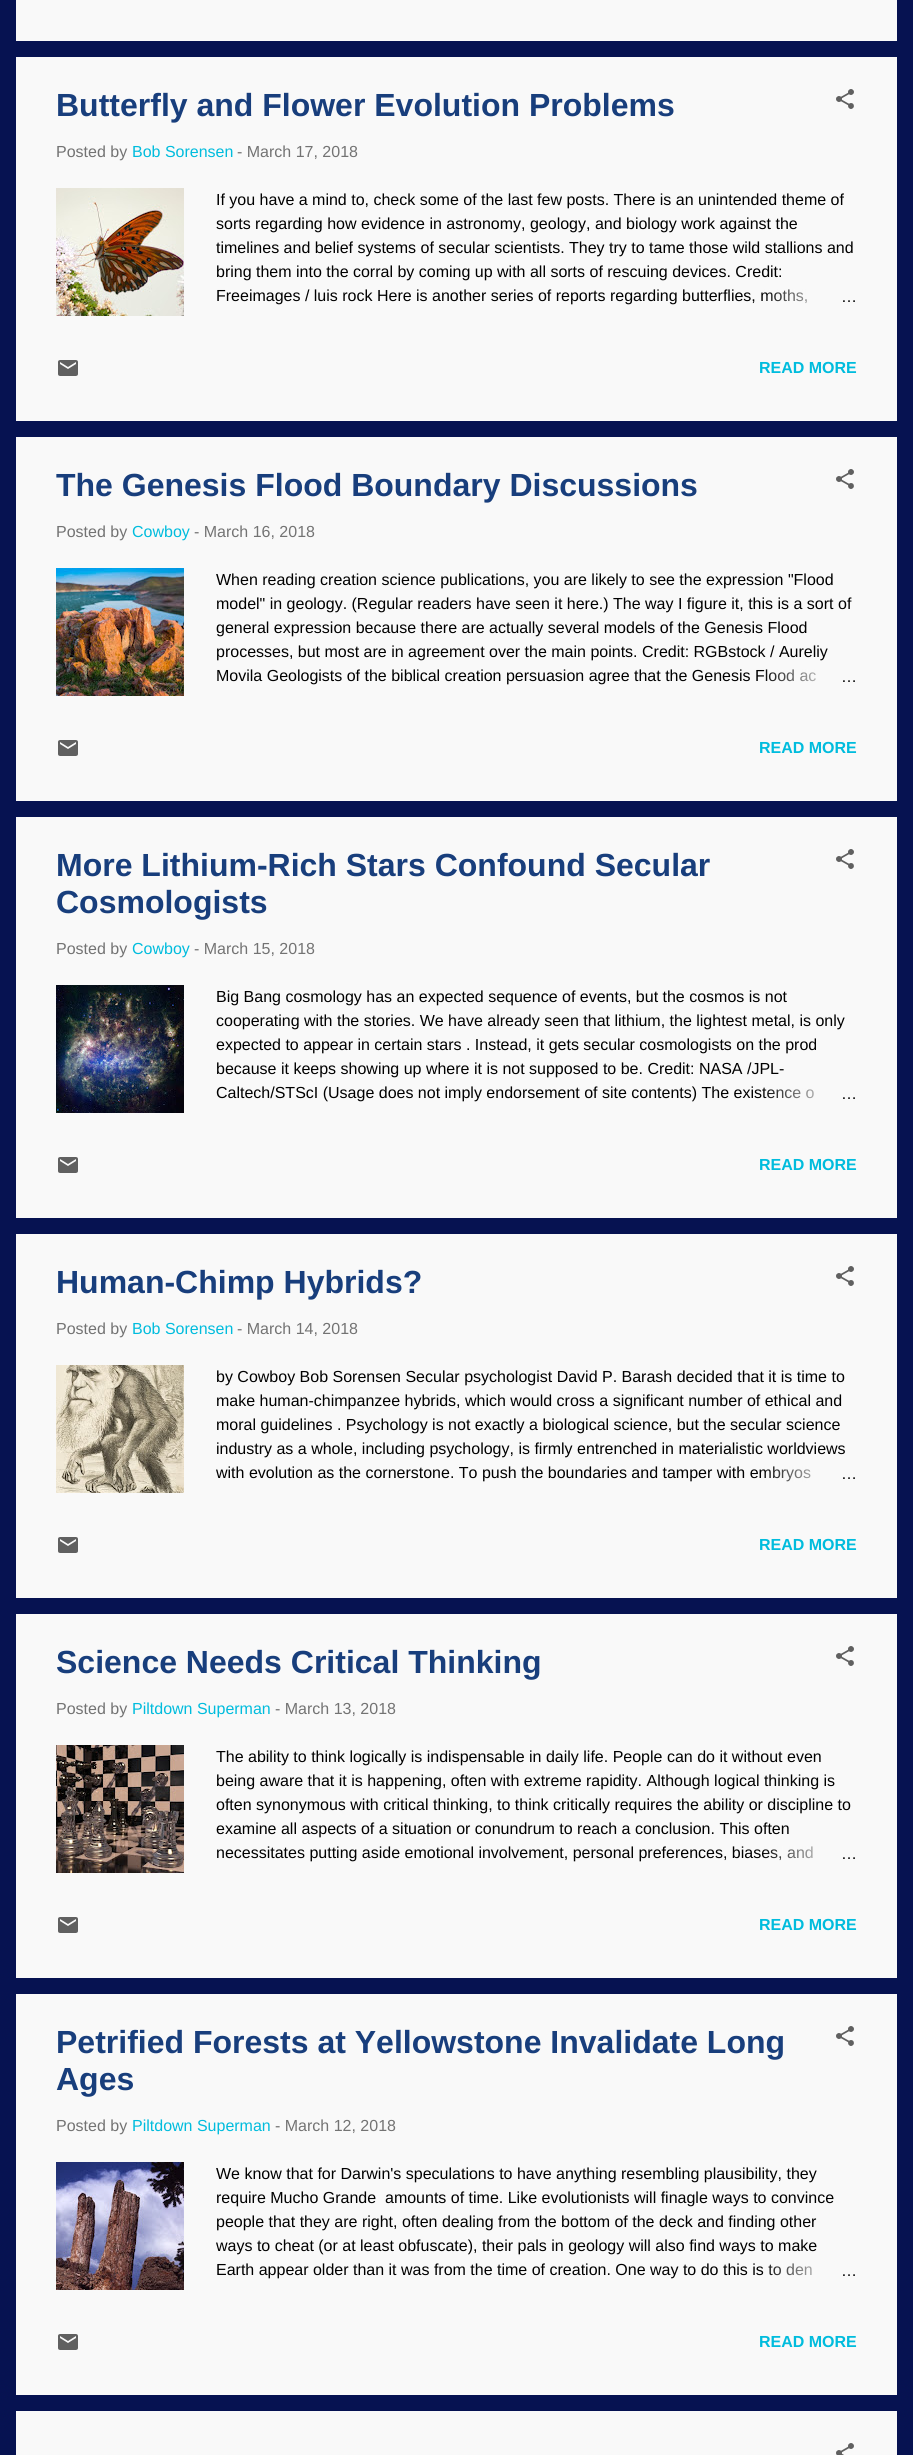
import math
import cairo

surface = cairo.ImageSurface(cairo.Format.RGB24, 913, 2455)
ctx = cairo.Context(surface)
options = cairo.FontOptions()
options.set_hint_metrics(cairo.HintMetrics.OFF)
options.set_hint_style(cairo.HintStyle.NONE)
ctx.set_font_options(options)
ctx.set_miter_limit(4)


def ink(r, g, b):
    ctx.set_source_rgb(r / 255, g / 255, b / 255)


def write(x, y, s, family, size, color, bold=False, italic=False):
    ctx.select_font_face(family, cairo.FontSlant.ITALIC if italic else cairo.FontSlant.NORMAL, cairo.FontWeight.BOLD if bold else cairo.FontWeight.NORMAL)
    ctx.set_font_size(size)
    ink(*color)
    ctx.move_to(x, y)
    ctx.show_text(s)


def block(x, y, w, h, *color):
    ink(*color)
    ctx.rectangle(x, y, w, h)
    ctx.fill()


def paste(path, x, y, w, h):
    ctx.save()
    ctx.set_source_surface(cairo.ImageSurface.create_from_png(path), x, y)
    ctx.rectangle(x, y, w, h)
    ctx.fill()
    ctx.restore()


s1 = dict(family="Liberation Sans", size=32, color=(24, 62, 124), bold=True)
s2 = dict(family="Liberation Sans", size=16, color=(115, 115, 115))
s3 = dict(family="Liberation Sans", size=16, color=(0, 188, 221))
s4 = dict(family="Liberation Sans", size=16, color=(0, 0, 0))
s5 = dict(family="Liberation Sans", size=16, color=(0, 188, 221), bold=True)

ink(6, 18, 81)
ctx.paint()
block(16, 0, 881, 41, 249, 249, 249)
block(16, 57, 881, 364, 249, 249, 249)
write(56, 116, "Butterfly and Flower Evolution Problems", **s1)
paste("pic1.png", 836, 89, 18, 20)
write(56, 157, "Posted by", **s2)
write(132, 157, "Bob Sorensen", **s3)
write(237, 157, "- March 17, 2018", **s2)
paste("pic2.png", 56, 188, 128, 128)
write(216, 205, "If you have a mind to, check some of the last few posts. There is an unintended theme of", **s4)
write(216, 229, "sorts regarding how evidence in astronomy, geology, and biology work against the", **s4)
write(216, 253, "timelines and belief systems of secular scientists. They try to tame those wild stallions and", **s4)
write(216, 277, "bring them into the corral by coming up with all sorts of rescuing devices. Credit:", **s4)
write(216, 301, "Freeimages / luis rock Here is another series of reports regarding butterflies, moths,", **s4)
gradient = cairo.LinearGradient(857, 296, 761, 296)
gradient.add_color_stop_rgba(0, 0.976, 0.976, 0.976, 1)
gradient.add_color_stop_rgba(0.2, 0.976, 0.976, 0.976, 1)
gradient.add_color_stop_rgba(1, 0.976, 0.976, 0.976, 0)
ctx.set_source(gradient)
ctx.rectangle(763, 289, 44, 15)
ctx.fill()
write(841, 302, "…", **s4)
paste("pic3.png", 58, 360, 20, 16)
write(759, 373, "READ MORE", **s5)
block(16, 437, 881, 364, 249, 249, 249)
write(56, 496, "The Genesis Flood Boundary Discussions", **s1)
paste("pic1.png", 836, 469, 18, 20)
write(56, 537, "Posted by", **s2)
write(132, 537, "Cowboy", **s3)
write(194, 537, "- March 16, 2018", **s2)
paste("pic4.png", 56, 568, 128, 128)
write(216, 585, "When reading creation science publications, you are likely to see the expression \"Flood", **s4)
write(216, 609, "model\" in geology. (Regular readers have seen it here.) The way I figure it, this is a sort of", **s4)
write(216, 633, "general expression because there are actually several models of the Genesis Flood", **s4)
write(216, 657, "processes, but most are in agreement over the main points. Credit: RGBstock / Aureliy", **s4)
write(216, 681, "Movila Geologists of the biblical creation persuasion agree that the Genesis Flood ac", **s4)
gradient = cairo.LinearGradient(857, 676, 761, 676)
gradient.add_color_stop_rgba(0, 0.976, 0.976, 0.976, 1)
gradient.add_color_stop_rgba(0.2, 0.976, 0.976, 0.976, 1)
gradient.add_color_stop_rgba(1, 0.976, 0.976, 0.976, 0)
ctx.set_source(gradient)
ctx.rectangle(763, 669, 53, 13)
ctx.fill()
write(841, 682, "…", **s4)
paste("pic3.png", 58, 740, 20, 16)
write(759, 753, "READ MORE", **s5)
block(16, 817, 881, 401, 249, 249, 249)
write(56, 876, "More Lithium-Rich Stars Confound Secular", **s1)
write(56, 913, "Cosmologists", **s1)
paste("pic1.png", 836, 849, 18, 20)
write(56, 954, "Posted by", **s2)
write(132, 954, "Cowboy", **s3)
write(194, 954, "- March 15, 2018", **s2)
paste("pic5.png", 56, 985, 128, 128)
write(216, 1002, "Big Bang cosmology has an expected sequence of events, but the cosmos is not", **s4)
write(216, 1026, "cooperating with the stories. We have already seen that lithium, the lightest metal, is only", **s4)
write(216, 1050, "expected to appear in certain stars . Instead, it gets secular cosmologists on the prod", **s4)
write(216, 1074, "because it keeps showing up where it is not supposed to be. Credit: NASA /JPL-", **s4)
write(216, 1098, "Caltech/STScI (Usage does not imply endorsement of site contents) The existence o", **s4)
gradient = cairo.LinearGradient(857, 1093, 761, 1093)
gradient.add_color_stop_rgba(0, 0.976, 0.976, 0.976, 1)
gradient.add_color_stop_rgba(0.2, 0.976, 0.976, 0.976, 1)
gradient.add_color_stop_rgba(1, 0.976, 0.976, 0.976, 0)
ctx.set_source(gradient)
ctx.rectangle(763, 1088, 51, 11)
ctx.fill()
write(841, 1099, "…", **s4)
paste("pic3.png", 58, 1157, 20, 16)
write(759, 1170, "READ MORE", **s5)
block(16, 1234, 881, 364, 249, 249, 249)
write(56, 1293, "Human-Chimp Hybrids?", **s1)
paste("pic1.png", 836, 1266, 18, 20)
write(56, 1334, "Posted by", **s2)
write(132, 1334, "Bob Sorensen", **s3)
write(237, 1334, "- March 14, 2018", **s2)
paste("pic6.png", 56, 1365, 128, 128)
write(216, 1382, "by Cowboy Bob Sorensen Secular psychologist David P. Barash decided that it is time to", **s4)
write(216, 1406, "make human-chimpanzee hybrids, which would cross a significant number of ethical and", **s4)
write(216, 1430, "moral guidelines . Psychology is not exactly a biological science, but the secular science", **s4)
write(216, 1454, "industry as a whole, including psychology, is firmly entrenched in materialistic worldviews", **s4)
write(216, 1478, "with evolution as the cornerstone. To push the boundaries and tamper with embryos", **s4)
gradient = cairo.LinearGradient(857, 1473, 761, 1473)
gradient.add_color_stop_rgba(0, 0.976, 0.976, 0.976, 1)
gradient.add_color_stop_rgba(0.2, 0.976, 0.976, 0.976, 1)
gradient.add_color_stop_rgba(1, 0.976, 0.976, 0.976, 0)
ctx.set_source(gradient)
ctx.rectangle(763, 1466, 48, 16)
ctx.fill()
write(841, 1479, "…", **s4)
paste("pic3.png", 58, 1537, 20, 16)
write(759, 1550, "READ MORE", **s5)
block(16, 1614, 881, 364, 249, 249, 249)
write(56, 1673, "Science Needs Critical Thinking", **s1)
paste("pic1.png", 836, 1646, 18, 20)
write(56, 1714, "Posted by", **s2)
write(132, 1714, "Piltdown Superman", **s3)
write(275, 1714, "- March 13, 2018", **s2)
paste("pic7.png", 56, 1745, 128, 128)
write(216, 1762, "The ability to think logically is indispensable in daily life. People can do it without even", **s4)
write(216, 1786, "being aware that it is happening, often with extreme rapidity. Although logical thinking is", **s4)
write(216, 1810, "often synonymous with critical thinking, to think critically requires the ability or discipline to", **s4)
write(216, 1834, "examine all aspects of a situation or conundrum to reach a conclusion. This often", **s4)
write(216, 1858, "necessitates putting aside emotional involvement, personal preferences, biases, and", **s4)
gradient = cairo.LinearGradient(857, 1853, 761, 1853)
gradient.add_color_stop_rgba(0, 0.976, 0.976, 0.976, 1)
gradient.add_color_stop_rgba(0.2, 0.976, 0.976, 0.976, 1)
gradient.add_color_stop_rgba(1, 0.976, 0.976, 0.976, 0)
ctx.set_source(gradient)
ctx.rectangle(763, 1846, 50, 14)
ctx.fill()
write(841, 1859, "…", **s4)
paste("pic3.png", 58, 1917, 20, 16)
write(759, 1930, "READ MORE", **s5)
block(16, 1994, 881, 401, 249, 249, 249)
write(56, 2053, "Petrified Forests at Yellowstone Invalidate Long", **s1)
write(56, 2090, "Ages", **s1)
paste("pic1.png", 836, 2026, 18, 20)
write(56, 2131, "Posted by", **s2)
write(132, 2131, "Piltdown Superman", **s3)
write(275, 2131, "- March 12, 2018", **s2)
paste("pic8.png", 56, 2162, 128, 128)
write(216, 2179, "We know that for Darwin's speculations to have anything resembling plausibility, they", **s4)
write(216, 2203, "require Mucho Grande  amounts of time. Like evolutionists will finagle ways to convince", **s4)
write(216, 2227, "people that they are right, often dealing from the bottom of the deck and finding other", **s4)
write(216, 2251, "ways to cheat (or at least obfuscate), their pals in geology will also find ways to make", **s4)
write(216, 2275, "Earth appear older than it was from the time of creation. One way to do this is to den", **s4)
gradient = cairo.LinearGradient(857, 2270, 761, 2270)
gradient.add_color_stop_rgba(0, 0.976, 0.976, 0.976, 1)
gradient.add_color_stop_rgba(0.2, 0.976, 0.976, 0.976, 1)
gradient.add_color_stop_rgba(1, 0.976, 0.976, 0.976, 0)
ctx.set_source(gradient)
ctx.rectangle(768, 2263, 44, 13)
ctx.fill()
write(841, 2276, "…", **s4)
paste("pic3.png", 58, 2334, 20, 16)
write(759, 2347, "READ MORE", **s5)
block(16, 2411, 881, 44, 249, 249, 249)
paste("pic9.png", 836, 2443, 18, 12)
surface.write_to_png("screenshot.png")
